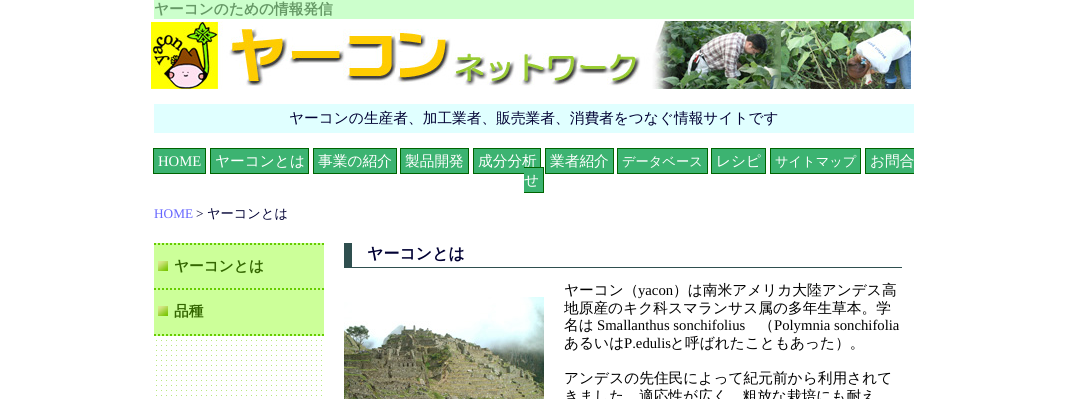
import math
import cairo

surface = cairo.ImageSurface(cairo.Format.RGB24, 1067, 399)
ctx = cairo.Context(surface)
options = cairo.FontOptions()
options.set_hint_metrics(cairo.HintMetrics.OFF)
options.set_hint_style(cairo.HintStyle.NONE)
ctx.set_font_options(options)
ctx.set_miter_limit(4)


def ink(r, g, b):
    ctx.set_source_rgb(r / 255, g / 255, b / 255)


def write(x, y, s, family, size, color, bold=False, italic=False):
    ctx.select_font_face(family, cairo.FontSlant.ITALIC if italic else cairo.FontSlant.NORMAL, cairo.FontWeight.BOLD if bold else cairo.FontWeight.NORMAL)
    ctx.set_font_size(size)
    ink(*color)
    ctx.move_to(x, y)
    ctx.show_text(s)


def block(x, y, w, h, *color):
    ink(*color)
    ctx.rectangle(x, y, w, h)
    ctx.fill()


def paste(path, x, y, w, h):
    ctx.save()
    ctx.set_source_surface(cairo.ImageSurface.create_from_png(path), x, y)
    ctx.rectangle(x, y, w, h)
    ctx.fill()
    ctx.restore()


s1 = dict(family="WenQuanYi Zen Hei", size=14.7, color=(102, 153, 102), bold=True)
s2 = dict(family="WenQuanYi Zen Hei Medium", size=14.7, color=(0, 0, 51))
s3 = dict(family="Liberation Serif", size=14.7, color=(255, 255, 255))
s4 = dict(family="WenQuanYi Zen Hei Medium", size=14.7, color=(255, 255, 255))
s5 = dict(family="WenQuanYi Zen Hei Medium", size=13.25, color=(255, 255, 255))
s6 = dict(family="Liberation Serif", size=13.25, color=(102, 102, 255))
s7 = dict(family="Liberation Serif", size=13.25, color=(0, 0, 51))
s8 = dict(family="WenQuanYi Zen Hei Medium", size=13.25, color=(0, 0, 51))
s9 = dict(family="WenQuanYi Zen Hei", size=14.7, color=(51, 102, 0), bold=True)
s10 = dict(family="WenQuanYi Zen Hei", size=16, color=(0, 0, 51), bold=True)
s11 = dict(family="WenQuanYi Zen Hei Medium", size=14.7, color=(0, 0, 0))
s12 = dict(family="Liberation Serif", size=14.7, color=(0, 0, 0))

ink(255, 255, 255)
ctx.paint()
block(154, 0, 760, 19, 204, 255, 204)
write(154, 14, "ヤーコンのための情報発信", **s1)
paste("pic1.png", 151, 21, 760, 68)
block(154, 104, 760, 29, 224, 255, 255)
write(289, 123, "ヤーコンの生産者、加工業者、販売業者、消費者をつなぐ情報サイトです", **s2)
ink(60, 179, 113)
ctx.rectangle(153.5, 148.5, 52, 25)
ctx.fill_preserve()
ink(0, 100, 0)
ctx.set_line_width(1)
ctx.stroke()
write(158, 166, "HOME", **s3)
ink(60, 179, 113)
ctx.rectangle(210.5, 148.5, 98, 25)
ctx.fill_preserve()
ink(0, 100, 0)
ctx.stroke()
write(215, 166, "ヤーコンとは", **s4)
ink(60, 179, 113)
ctx.rectangle(313.5, 148.5, 83, 25)
ctx.fill_preserve()
ink(0, 100, 0)
ctx.stroke()
write(318, 166, "事業の紹介", **s4)
ink(60, 179, 113)
ctx.rectangle(400.5, 148.5, 68, 25)
ctx.fill_preserve()
ink(0, 100, 0)
ctx.stroke()
write(405, 166, "製品開発", **s4)
ink(60, 179, 113)
ctx.rectangle(473.5, 148.5, 67, 25)
ctx.fill_preserve()
ink(0, 100, 0)
ctx.stroke()
write(478, 166, "成分分析", **s4)
ink(60, 179, 113)
ctx.rectangle(545.5, 148.5, 68, 25)
ctx.fill_preserve()
ink(0, 100, 0)
ctx.stroke()
write(550, 166, "業者紹介", **s4)
ink(60, 179, 113)
ctx.rectangle(617.5, 148.5, 90, 25)
ctx.fill_preserve()
ink(0, 100, 0)
ctx.stroke()
write(622, 166, "データベース", **s5)
ink(60, 179, 113)
ctx.rectangle(711.5, 148.5, 54, 25)
ctx.fill_preserve()
ink(0, 100, 0)
ctx.stroke()
write(716, 166, "レシピ", **s4)
ink(60, 179, 113)
ctx.rectangle(770.5, 148.5, 90, 25)
ctx.fill_preserve()
ink(0, 100, 0)
ctx.stroke()
write(775, 166, "サイトマップ", **s5)
block(866, 149, 48, 24, 60, 179, 113)
write(870, 166, "お問合", **s4)
block(865, 148, 49, 1, 0, 100, 0)
block(865, 173, 49, 1, 0, 100, 0)
block(865, 148, 1, 26, 0, 100, 0)
block(524, 168, 19, 24, 60, 179, 113)
write(524, 185, "せ", **s4)
block(524, 167, 20, 1, 0, 100, 0)
block(543, 167, 1, 26, 0, 100, 0)
block(524, 192, 20, 1, 0, 100, 0)
write(154, 218, "HOME", **s6)
write(196, 218, ">", **s7)
write(207, 218, "ヤーコンとは", **s8)
paste("pic2.png", 156, 336, 168, 60)
block(154, 243, 170, 93, 204, 255, 153)
ctx.new_path()
ctx.move_to(154, 244)
ctx.line_to(324, 244)
ink(102, 204, 0)
ctx.set_line_width(2)
ctx.set_dash([2, 2])
ctx.stroke()
paste("pic3.png", 158, 261, 10, 10)
ctx.new_path()
ctx.move_to(154, 289)
ctx.line_to(324, 289)
ctx.stroke()
write(174, 271, "ヤーコンとは", **s9)
paste("pic3.png", 158, 306, 10, 10)
ctx.new_path()
ctx.move_to(154, 335)
ctx.line_to(324, 335)
ink(102, 204, 0)
ctx.stroke()
write(174, 316, "品種", **s9)
block(344, 267, 558, 1, 47, 79, 79)
block(344, 243, 8, 25, 47, 79, 79)
write(367, 259, "ヤーコンとは", **s10)
paste("pic4.png", 344, 297, 200, 102)
write(564, 295, "ヤーコン（", **s11)
write(638, 295, "yacon", **s12)
write(673, 295, "）は南米アメリカ大陸アンデス高", **s11)
write(564, 313, "地原産のキク科スマランサス属の多年生草本。学", **s11)
write(564, 330, "名は", **s11)
write(597, 330, "Smallanthus sonchifolius", **s12)
write(759, 330, "（", **s11)
write(774, 330, "Polymnia sonchifolia", **s12)
write(564, 348, "あるいは", **s11)
write(624, 348, "P.edulis", **s12)
write(670, 348, "と呼ばれたこともあった）。", **s11)
write(564, 383, "アンデスの先住民によって紀元前から利用されて", **s11)
write(564, 401, "きました。適応性が広く、粗放な栽培にも耐え", **s11)
surface.write_to_png("screenshot.png")
